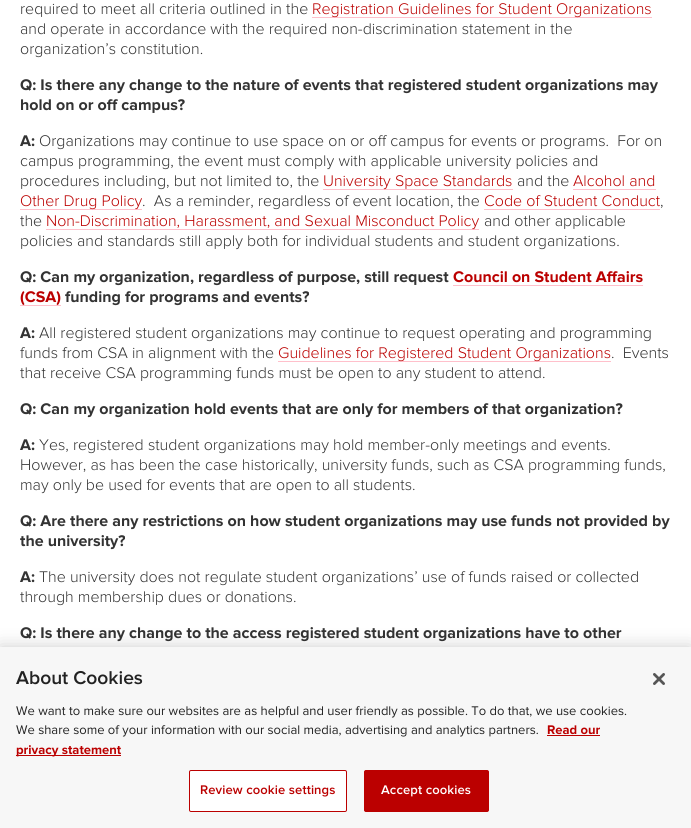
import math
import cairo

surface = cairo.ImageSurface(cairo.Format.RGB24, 691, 828)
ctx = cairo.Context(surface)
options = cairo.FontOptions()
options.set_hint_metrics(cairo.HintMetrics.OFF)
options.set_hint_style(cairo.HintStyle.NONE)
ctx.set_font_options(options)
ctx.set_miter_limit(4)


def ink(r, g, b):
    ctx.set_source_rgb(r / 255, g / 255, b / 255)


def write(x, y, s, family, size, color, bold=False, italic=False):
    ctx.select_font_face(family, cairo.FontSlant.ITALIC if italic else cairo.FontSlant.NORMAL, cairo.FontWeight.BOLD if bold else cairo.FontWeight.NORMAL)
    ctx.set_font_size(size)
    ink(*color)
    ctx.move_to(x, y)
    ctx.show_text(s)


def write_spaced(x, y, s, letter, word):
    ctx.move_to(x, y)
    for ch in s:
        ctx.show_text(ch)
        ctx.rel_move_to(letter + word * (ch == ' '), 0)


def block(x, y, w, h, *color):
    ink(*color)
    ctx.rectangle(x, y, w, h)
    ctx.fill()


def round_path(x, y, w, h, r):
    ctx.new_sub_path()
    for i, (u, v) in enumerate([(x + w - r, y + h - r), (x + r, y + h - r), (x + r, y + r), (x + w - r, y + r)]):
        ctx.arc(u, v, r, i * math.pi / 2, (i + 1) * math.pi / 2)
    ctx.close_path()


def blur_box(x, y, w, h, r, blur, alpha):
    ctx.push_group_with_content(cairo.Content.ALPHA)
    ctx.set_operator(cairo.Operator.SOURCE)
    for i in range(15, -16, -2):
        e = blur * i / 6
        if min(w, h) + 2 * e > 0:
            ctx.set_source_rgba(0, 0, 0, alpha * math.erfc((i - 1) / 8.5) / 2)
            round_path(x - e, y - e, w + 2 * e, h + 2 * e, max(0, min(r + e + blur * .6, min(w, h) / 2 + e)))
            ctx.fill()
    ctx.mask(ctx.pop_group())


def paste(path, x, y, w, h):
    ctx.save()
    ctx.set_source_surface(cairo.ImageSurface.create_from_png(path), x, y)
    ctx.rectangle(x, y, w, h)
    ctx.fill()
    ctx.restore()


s1 = dict(family="Proxima Nova Light", size=16, color=(51, 51, 51))
s2 = dict(family="Proxima Nova Light", size=16, color=(187, 0, 0))
s3 = dict(family="Proxima Nova", size=16, color=(51, 51, 51), bold=True)
s4 = dict(family="Proxima Nova", size=16, color=(187, 0, 0), bold=True)
s5 = dict(family="Proxima Nova SemiBold", size=19.25, color=(34, 34, 34))
s6 = dict(family="Proxima Nova", size=13, color=(34, 34, 34))
s7 = dict(family="Proxima Nova", size=13, color=(187, 0, 0), bold=True)

ink(255, 255, 255)
ctx.paint()
write(20, 14, "required to meet all criteria outlined in the", **s1)
gradient = cairo.LinearGradient(482, -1, 482, 19)
gradient.add_color_stop_rgba(0, 1, 1, 1, 1)
gradient.add_color_stop_rgba(0.88, 1, 1, 1, 1)
gradient.add_color_stop_rgba(0.92, 1, 0.753, 0.796, 1)
gradient.add_color_stop_rgba(0.96, 1, 0.753, 0.796, 1)
gradient.add_color_stop_rgba(0.96, 1, 1, 1, 1)
ctx.set_source(gradient)
ctx.rectangle(312, 17, 340, 1)
ctx.fill()
write(312, 14, "Registration Guidelines for Student Organizations", **s2)
write(20, 34, "and operate in accordance with the required non-discrimination statement in the", **s1)
write(20, 54, "organization’s constitution.", **s1)
write(20, 90, "Q: Is there any change to the nature of events that registered student organizations may", **s3)
write(20, 110, "hold on or off campus?", **s3)
write(20, 146, "A:", **s3)
write(39, 146, "Organizations may continue to use space on or off campus for events or programs.  For on", **s1)
write(20, 166, "campus programming, the event must comply with applicable university policies and", **s1)
write(20, 186, "procedures including, but not limited to, the", **s1)
gradient = cairo.LinearGradient(418, 171, 418, 191)
gradient.add_color_stop_rgba(0, 1, 1, 1, 1)
gradient.add_color_stop_rgba(0.88, 1, 1, 1, 1)
gradient.add_color_stop_rgba(0.92, 1, 0.753, 0.796, 1)
gradient.add_color_stop_rgba(0.96, 1, 0.753, 0.796, 1)
gradient.add_color_stop_rgba(0.96, 1, 1, 1, 1)
ctx.set_source(gradient)
ctx.rectangle(323, 189, 190, 1)
ctx.fill()
write(323, 186, "University Space Standards", **s2)
write(517, 186, "and the", **s1)
write(573, 186, "Alcohol and", **s2)
gradient = cairo.LinearGradient(615, 171, 615, 191)
gradient.add_color_stop_rgba(0, 1, 1, 1, 1)
gradient.add_color_stop_rgba(0.88, 1, 1, 1, 1)
gradient.add_color_stop_rgba(0.92, 1, 0.753, 0.796, 1)
gradient.add_color_stop_rgba(0.96, 1, 0.753, 0.796, 1)
gradient.add_color_stop_rgba(0.96, 1, 1, 1, 1)
ctx.set_source(gradient)
ctx.rectangle(573, 189, 83, 1)
ctx.fill()
gradient = cairo.LinearGradient(81, 191, 81, 211)
gradient.add_color_stop_rgba(0, 1, 1, 1, 1)
gradient.add_color_stop_rgba(0.88, 1, 1, 1, 1)
gradient.add_color_stop_rgba(0.92, 1, 0.753, 0.796, 1)
gradient.add_color_stop_rgba(0.96, 1, 0.753, 0.796, 1)
gradient.add_color_stop_rgba(0.96, 1, 1, 1, 1)
ctx.set_source(gradient)
ctx.rectangle(20, 209, 122, 1)
ctx.fill()
write(20, 206, "Other Drug Policy", **s2)
write(142, 206, ".  As a reminder, regardless of event location, the", **s1)
write(484, 206, "Code of Student Conduct", **s2)
gradient = cairo.LinearGradient(572, 191, 572, 211)
gradient.add_color_stop_rgba(0, 1, 1, 1, 1)
gradient.add_color_stop_rgba(0.88, 1, 1, 1, 1)
gradient.add_color_stop_rgba(0.92, 1, 0.753, 0.796, 1)
gradient.add_color_stop_rgba(0.96, 1, 0.753, 0.796, 1)
gradient.add_color_stop_rgba(0.96, 1, 1, 1, 1)
ctx.set_source(gradient)
ctx.rectangle(484, 209, 176, 1)
ctx.fill()
write(660, 206, ",", **s1)
write(20, 226, "the", **s1)
gradient = cairo.LinearGradient(263, 211, 263, 231)
gradient.add_color_stop_rgba(0, 1, 1, 1, 1)
gradient.add_color_stop_rgba(0.88, 1, 1, 1, 1)
gradient.add_color_stop_rgba(0.92, 1, 0.753, 0.796, 1)
gradient.add_color_stop_rgba(0.96, 1, 0.753, 0.796, 1)
gradient.add_color_stop_rgba(0.96, 1, 1, 1, 1)
ctx.set_source(gradient)
ctx.rectangle(46, 229, 433, 1)
ctx.fill()
write(46, 226, "Non-Discrimination, Harassment, and Sexual Misconduct Policy", **s2)
write(484, 226, "and other applicable", **s1)
write(20, 246, "policies and standards still apply both for individual students and student organizations.", **s1)
write(20, 282, "Q: Can my organization, regardless of purpose, still request", **s3)
write(453, 282, "Council on Student Affairs", **s4)
gradient = cairo.LinearGradient(548, 267, 548, 287)
gradient.add_color_stop_rgba(0, 1, 1, 1, 1)
gradient.add_color_stop_rgba(0.88, 1, 1, 1, 1)
gradient.add_color_stop_rgba(0.92, 1, 0.753, 0.796, 1)
gradient.add_color_stop_rgba(0.96, 1, 0.753, 0.796, 1)
gradient.add_color_stop_rgba(0.96, 1, 1, 1, 1)
ctx.set_source(gradient)
ctx.rectangle(453, 285, 190, 1)
ctx.fill()
gradient = cairo.LinearGradient(41, 287, 41, 307)
gradient.add_color_stop_rgba(0, 1, 1, 1, 1)
gradient.add_color_stop_rgba(0.88, 1, 1, 1, 1)
gradient.add_color_stop_rgba(0.92, 1, 0.753, 0.796, 1)
gradient.add_color_stop_rgba(0.96, 1, 0.753, 0.796, 1)
gradient.add_color_stop_rgba(0.96, 1, 1, 1, 1)
ctx.set_source(gradient)
ctx.rectangle(20, 305, 41, 1)
ctx.fill()
write(20, 302, "(CSA)", **s4)
write(65, 302, "funding for programs and events?", **s3)
write(20, 338, "A:", **s3)
write(39, 338, "All registered student organizations may continue to request operating and programming", **s1)
write(20, 358, "funds from CSA in alignment with the", **s1)
gradient = cairo.LinearGradient(445, 343, 445, 363)
gradient.add_color_stop_rgba(0, 1, 1, 1, 1)
gradient.add_color_stop_rgba(0.88, 1, 1, 1, 1)
gradient.add_color_stop_rgba(0.92, 1, 0.753, 0.796, 1)
gradient.add_color_stop_rgba(0.96, 1, 0.753, 0.796, 1)
gradient.add_color_stop_rgba(0.96, 1, 1, 1, 1)
ctx.set_source(gradient)
ctx.rectangle(278, 361, 333, 1)
ctx.fill()
write(278, 358, "Guidelines for Registered Student Organizations", **s2)
write(611, 358, ".  Events", **s1)
write(20, 378, "that receive CSA programming funds must be open to any student to attend.", **s1)
write(20, 414, "Q: Can my organization hold events that are only for members of that organization?", **s3)
write(20, 450, "A:", **s3)
write(39, 450, "Yes, registered student organizations may hold member-only meetings and events.", **s1)
write(20, 470, "However, as has been the case historically, university funds, such as CSA programming funds,", **s1)
write(20, 490, "may only be used for events that are open to all students.", **s1)
write(20, 526, "Q: Are there any restrictions on how student organizations may use funds not provided by", **s3)
write(20, 546, "the university?", **s3)
write(20, 582, "A:", **s3)
write(39, 582, "The university does not regulate student organizations’ use of funds raised or collected", **s1)
write(20, 602, "through membership dues or donations.", **s1)
write(20, 638, "Q: Is there any change to the access registered student organizations have to other", **s3)
ink(0, 0, 0)
blur_box(0, 647, 691, 181, 0, 9, 0.2)
block(0, 647, 691, 181, 247, 247, 247)
write(16, 684, "About Cookies", **s5)
write(16, 715, "We want to make sure our websites are as helpful and user friendly as possible. To do that, we use cookies.", **s6)
write(16, 734, "We share some of your information with our social media, advertising and analytics partners.", **s6)
write(547, 734, "Read our", **s7)
block(547, 735, 53, 1, 187, 0, 0)
block(16, 755, 105, 1, 187, 0, 0)
write(16, 754, "privacy statement", **s7)
ink(255, 255, 255)
round_path(189.5, 770.5, 157, 41, 1.5)
ctx.fill_preserve()
ink(187, 0, 0)
ctx.set_line_width(1)
ctx.stroke()
ctx.select_font_face("Proxima Nova SemiBold")
write_spaced(200, 794, "Review cookie settings", 0.1, 0)
round_path(364.5, 770.5, 124, 41, 1.5)
ctx.fill_preserve()
ctx.stroke()
ink(255, 255, 255)
write_spaced(381, 794, "Accept cookies", 0.1, 0)
paste("pic1.png", 653, 673, 12, 12)
surface.write_to_png("screenshot.png")
